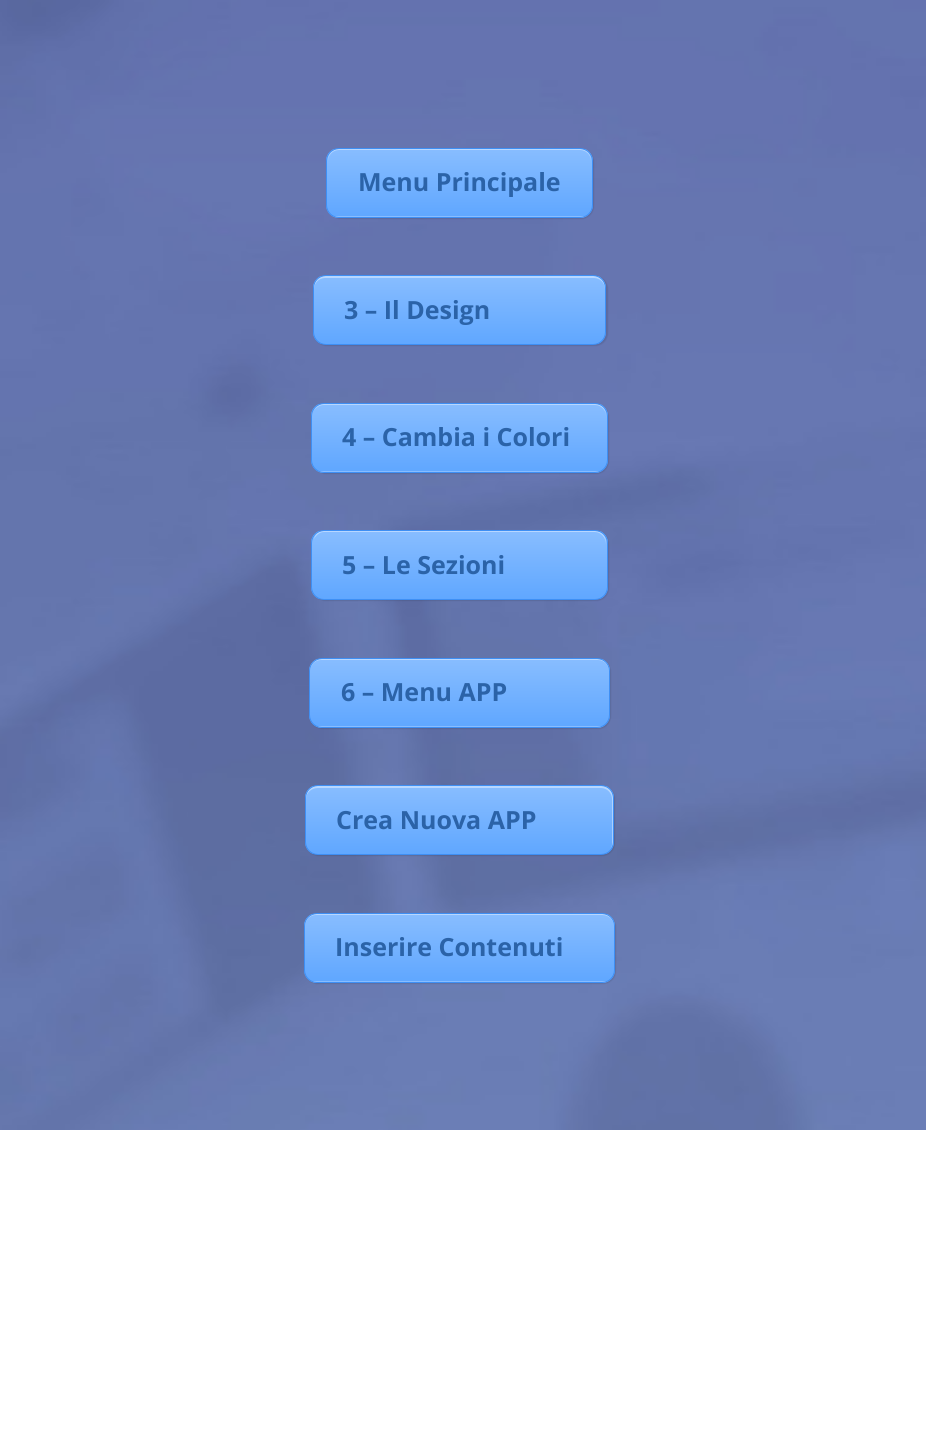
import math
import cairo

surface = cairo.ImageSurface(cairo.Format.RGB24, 926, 1436)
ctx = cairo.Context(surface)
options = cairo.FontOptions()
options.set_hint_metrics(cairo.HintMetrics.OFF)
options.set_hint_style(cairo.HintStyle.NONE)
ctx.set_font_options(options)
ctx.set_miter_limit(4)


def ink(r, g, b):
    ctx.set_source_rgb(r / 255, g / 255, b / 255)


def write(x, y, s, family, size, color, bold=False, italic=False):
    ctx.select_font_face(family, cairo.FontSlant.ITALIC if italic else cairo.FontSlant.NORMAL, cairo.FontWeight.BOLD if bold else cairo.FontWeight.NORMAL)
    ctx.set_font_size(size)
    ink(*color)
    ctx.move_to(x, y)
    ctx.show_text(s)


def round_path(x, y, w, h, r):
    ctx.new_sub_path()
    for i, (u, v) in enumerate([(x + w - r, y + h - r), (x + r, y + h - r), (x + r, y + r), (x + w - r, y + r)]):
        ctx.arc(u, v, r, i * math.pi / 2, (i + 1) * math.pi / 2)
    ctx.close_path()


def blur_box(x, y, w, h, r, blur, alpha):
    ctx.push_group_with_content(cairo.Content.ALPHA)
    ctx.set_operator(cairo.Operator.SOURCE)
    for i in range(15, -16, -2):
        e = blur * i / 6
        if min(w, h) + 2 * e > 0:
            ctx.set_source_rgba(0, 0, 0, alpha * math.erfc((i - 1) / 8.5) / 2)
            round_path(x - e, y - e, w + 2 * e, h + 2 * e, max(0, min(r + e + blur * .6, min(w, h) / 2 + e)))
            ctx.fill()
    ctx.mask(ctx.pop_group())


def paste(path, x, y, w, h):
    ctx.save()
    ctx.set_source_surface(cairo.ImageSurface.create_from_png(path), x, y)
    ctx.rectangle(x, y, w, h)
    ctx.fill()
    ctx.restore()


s1 = dict(family="Open Sans", size=25, color=(43, 99, 168), bold=True)

ink(255, 255, 255)
ctx.paint()
paste("pic1.png", 0, 0, 926, 1130)
ink(0, 0, 0)
blur_box(328, 149, 266, 70, 13, 0.5, 0.1)
ctx.save()
round_path(326, 148, 267, 70, 13)
ctx.clip()
gradient = cairo.LinearGradient(459, 149, 459, 216)
gradient.add_color_stop_rgba(0, 0.533, 0.741, 1, 1)
gradient.add_color_stop_rgba(1, 0.376, 0.655, 1, 1)
ctx.set_source(gradient)
ctx.rectangle(326, 149, 267, 67)
ctx.fill()
gradient = cairo.LinearGradient(459, 216, 459, 284)
gradient.add_color_stop_rgba(0, 0.533, 0.741, 1, 1)
gradient.add_color_stop_rgba(1, 0.376, 0.655, 1, 1)
ctx.set_source(gradient)
ctx.rectangle(326, 216, 267, 2)
ctx.fill()
ctx.restore()
ctx.set_source_rgba(1, 1, 1, 0.4)
ctx.new_path()
ctx.move_to(339, 150)
ctx.line_to(580, 150)
ctx.curve_to(586, 150, 591, 155, 591, 161)
ctx.line_to(591, 160)
ctx.curve_to(591, 154, 586, 149, 580, 149)
ctx.line_to(339, 149)
ctx.curve_to(333, 149, 328, 154, 328, 160)
ctx.line_to(328, 161)
ctx.curve_to(328, 155, 333, 150, 339, 150)
ctx.close_path()
ctx.fill()
round_path(326.5, 148.5, 266, 69, 12.5)
ink(62, 143, 244)
ctx.set_line_width(1)
ctx.stroke()
write(358, 191, "Menu Principale", **s1)
ink(0, 0, 0)
blur_box(314, 276, 294, 70, 13, 0.5, 0.1)
ctx.save()
round_path(313, 275, 293, 70, 13)
ctx.clip()
gradient = cairo.LinearGradient(459, 276, 459, 344)
gradient.add_color_stop_rgba(0, 0.533, 0.741, 1, 1)
gradient.add_color_stop_rgba(1, 0.376, 0.655, 1, 1)
ctx.set_source(gradient)
ctx.rectangle(313, 276, 293, 68)
ctx.fill()
ctx.restore()
ctx.set_source_rgba(1, 1, 1, 0.4)
ctx.new_path()
ctx.move_to(325, 278)
ctx.line_to(594, 278)
ctx.curve_to(600, 278, 605, 283, 605, 289)
ctx.line_to(605, 287)
ctx.curve_to(605, 281, 600, 276, 594, 276)
ctx.line_to(325, 276)
ctx.curve_to(319, 276, 314, 281, 314, 287)
ctx.line_to(314, 289)
ctx.curve_to(314, 283, 319, 278, 325, 278)
ctx.close_path()
ctx.fill()
round_path(313.5, 275.5, 292, 69, 12.5)
ink(62, 143, 244)
ctx.stroke()
write(344, 319, "3 – Il Design", **s1)
ink(0, 0, 0)
blur_box(313, 404, 296, 70, 13, 0.5, 0.1)
ctx.save()
round_path(311, 403, 297, 70, 13)
ctx.clip()
gradient = cairo.LinearGradient(459, 404, 459, 471)
gradient.add_color_stop_rgba(0, 0.533, 0.741, 1, 1)
gradient.add_color_stop_rgba(1, 0.376, 0.655, 1, 1)
ctx.set_source(gradient)
ctx.rectangle(311, 404, 297, 67)
ctx.fill()
gradient = cairo.LinearGradient(459, 471, 459, 539)
gradient.add_color_stop_rgba(0, 0.533, 0.741, 1, 1)
gradient.add_color_stop_rgba(1, 0.376, 0.655, 1, 1)
ctx.set_source(gradient)
ctx.rectangle(311, 471, 297, 2)
ctx.fill()
ctx.restore()
ctx.set_source_rgba(1, 1, 1, 0.4)
ctx.new_path()
ctx.move_to(324, 405)
ctx.line_to(595, 405)
ctx.curve_to(601, 405, 606, 410, 606, 416)
ctx.curve_to(606, 410, 603, 405, 597, 404)
ctx.line_to(322, 404)
ctx.curve_to(319, 405, 316, 407, 314, 410)
ctx.curve_to(317, 407, 320, 405, 324, 405)
ctx.close_path()
ctx.fill()
round_path(311.5, 403.5, 296, 69, 12.5)
ink(62, 143, 244)
ctx.stroke()
write(342, 446, "4 – Cambia i Colori", **s1)
ink(0, 0, 0)
blur_box(313, 531, 296, 70, 13, 0.5, 0.1)
ctx.save()
round_path(311, 530, 297, 70, 13)
ctx.clip()
gradient = cairo.LinearGradient(459, 531, 459, 599)
gradient.add_color_stop_rgba(0, 0.533, 0.741, 1, 1)
gradient.add_color_stop_rgba(1, 0.376, 0.655, 1, 1)
ctx.set_source(gradient)
ctx.rectangle(311, 531, 297, 68)
ctx.fill()
ctx.restore()
ctx.set_source_rgba(1, 1, 1, 0.4)
ctx.new_path()
ctx.move_to(324, 532)
ctx.line_to(595, 532)
ctx.curve_to(601, 532, 606, 538, 606, 544)
ctx.line_to(606, 542)
ctx.curve_to(606, 536, 601, 531, 595, 531)
ctx.line_to(324, 531)
ctx.curve_to(319, 531, 315, 534, 314, 539)
ctx.curve_to(316, 535, 320, 532, 324, 532)
ctx.close_path()
ctx.fill()
round_path(311.5, 530.5, 296, 69, 12.5)
ink(62, 143, 244)
ctx.stroke()
write(342, 574, "5 – Le Sezioni", **s1)
ink(0, 0, 0)
blur_box(310, 659, 301, 70, 13, 0.5, 0.1)
ctx.save()
round_path(309, 658, 301, 70, 13)
ctx.clip()
gradient = cairo.LinearGradient(459, 659, 459, 726)
gradient.add_color_stop_rgba(0, 0.533, 0.741, 1, 1)
gradient.add_color_stop_rgba(1, 0.376, 0.655, 1, 1)
ctx.set_source(gradient)
ctx.rectangle(309, 659, 301, 67)
ctx.fill()
gradient = cairo.LinearGradient(459, 726, 459, 794)
gradient.add_color_stop_rgba(0, 0.533, 0.741, 1, 1)
gradient.add_color_stop_rgba(1, 0.376, 0.655, 1, 1)
ctx.set_source(gradient)
ctx.rectangle(309, 726, 301, 2)
ctx.fill()
ctx.restore()
ctx.set_source_rgba(1, 1, 1, 0.4)
ctx.new_path()
ctx.move_to(321, 660)
ctx.line_to(598, 660)
ctx.curve_to(604, 660, 609, 665, 609, 671)
ctx.line_to(609, 670)
ctx.curve_to(609, 664, 604, 659, 598, 659)
ctx.line_to(321, 659)
ctx.curve_to(315, 659, 310, 664, 310, 670)
ctx.line_to(310, 671)
ctx.curve_to(310, 665, 315, 660, 321, 660)
ctx.close_path()
ctx.fill()
round_path(309.5, 658.5, 300, 69, 12.5)
ink(62, 143, 244)
ctx.stroke()
write(341, 701, "6 – Menu APP", **s1)
ink(0, 0, 0)
blur_box(306, 786, 309, 70, 13, 0.5, 0.1)
ctx.save()
round_path(305, 785, 309, 70, 13)
ctx.clip()
gradient = cairo.LinearGradient(459, 786, 459, 854)
gradient.add_color_stop_rgba(0, 0.533, 0.741, 1, 1)
gradient.add_color_stop_rgba(1, 0.376, 0.655, 1, 1)
ctx.set_source(gradient)
ctx.rectangle(305, 786, 309, 68)
ctx.fill()
ctx.restore()
ctx.set_source_rgba(1, 1, 1, 0.4)
ctx.new_path()
ctx.move_to(318, 788)
ctx.line_to(601, 788)
ctx.curve_to(607, 788, 612, 793, 612, 799)
ctx.line_to(612, 844)
ctx.curve_to(612, 847, 611, 849, 609, 851)
ctx.curve_to(611, 849, 613, 846, 613, 843)
ctx.line_to(613, 797)
ctx.curve_to(613, 791, 608, 786, 602, 786)
ctx.line_to(317, 786)
ctx.curve_to(311, 786, 306, 791, 306, 797)
ctx.line_to(306, 799)
ctx.curve_to(306, 793, 311, 788, 318, 788)
ctx.close_path()
ctx.fill()
round_path(305.5, 785.5, 308, 69, 12.5)
ink(62, 143, 244)
ctx.stroke()
write(336, 829, "Crea Nuova APP", **s1)
ink(0, 0, 0)
blur_box(305, 914, 311, 70, 13, 0.5, 0.1)
ctx.save()
round_path(304, 913, 311, 70, 13)
ctx.clip()
gradient = cairo.LinearGradient(459, 914, 459, 981)
gradient.add_color_stop_rgba(0, 0.533, 0.741, 1, 1)
gradient.add_color_stop_rgba(1, 0.376, 0.655, 1, 1)
ctx.set_source(gradient)
ctx.rectangle(304, 914, 311, 67)
ctx.fill()
gradient = cairo.LinearGradient(459, 981, 459, 1049)
gradient.add_color_stop_rgba(0, 0.533, 0.741, 1, 1)
gradient.add_color_stop_rgba(1, 0.376, 0.655, 1, 1)
ctx.set_source(gradient)
ctx.rectangle(304, 981, 311, 2)
ctx.fill()
ctx.restore()
ctx.set_source_rgba(1, 1, 1, 0.4)
ctx.new_path()
ctx.move_to(316, 915)
ctx.line_to(602, 915)
ctx.curve_to(609, 915, 614, 920, 614, 926)
ctx.line_to(614, 925)
ctx.curve_to(614, 919, 609, 914, 603, 914)
ctx.line_to(316, 914)
ctx.curve_to(310, 914, 305, 919, 305, 925)
ctx.line_to(305, 926)
ctx.curve_to(305, 920, 310, 915, 316, 915)
ctx.close_path()
ctx.fill()
round_path(304.5, 913.5, 310, 69, 12.5)
ink(62, 143, 244)
ctx.stroke()
write(335, 956, "Inserire Contenuti", **s1)
surface.write_to_png("screenshot.png")
